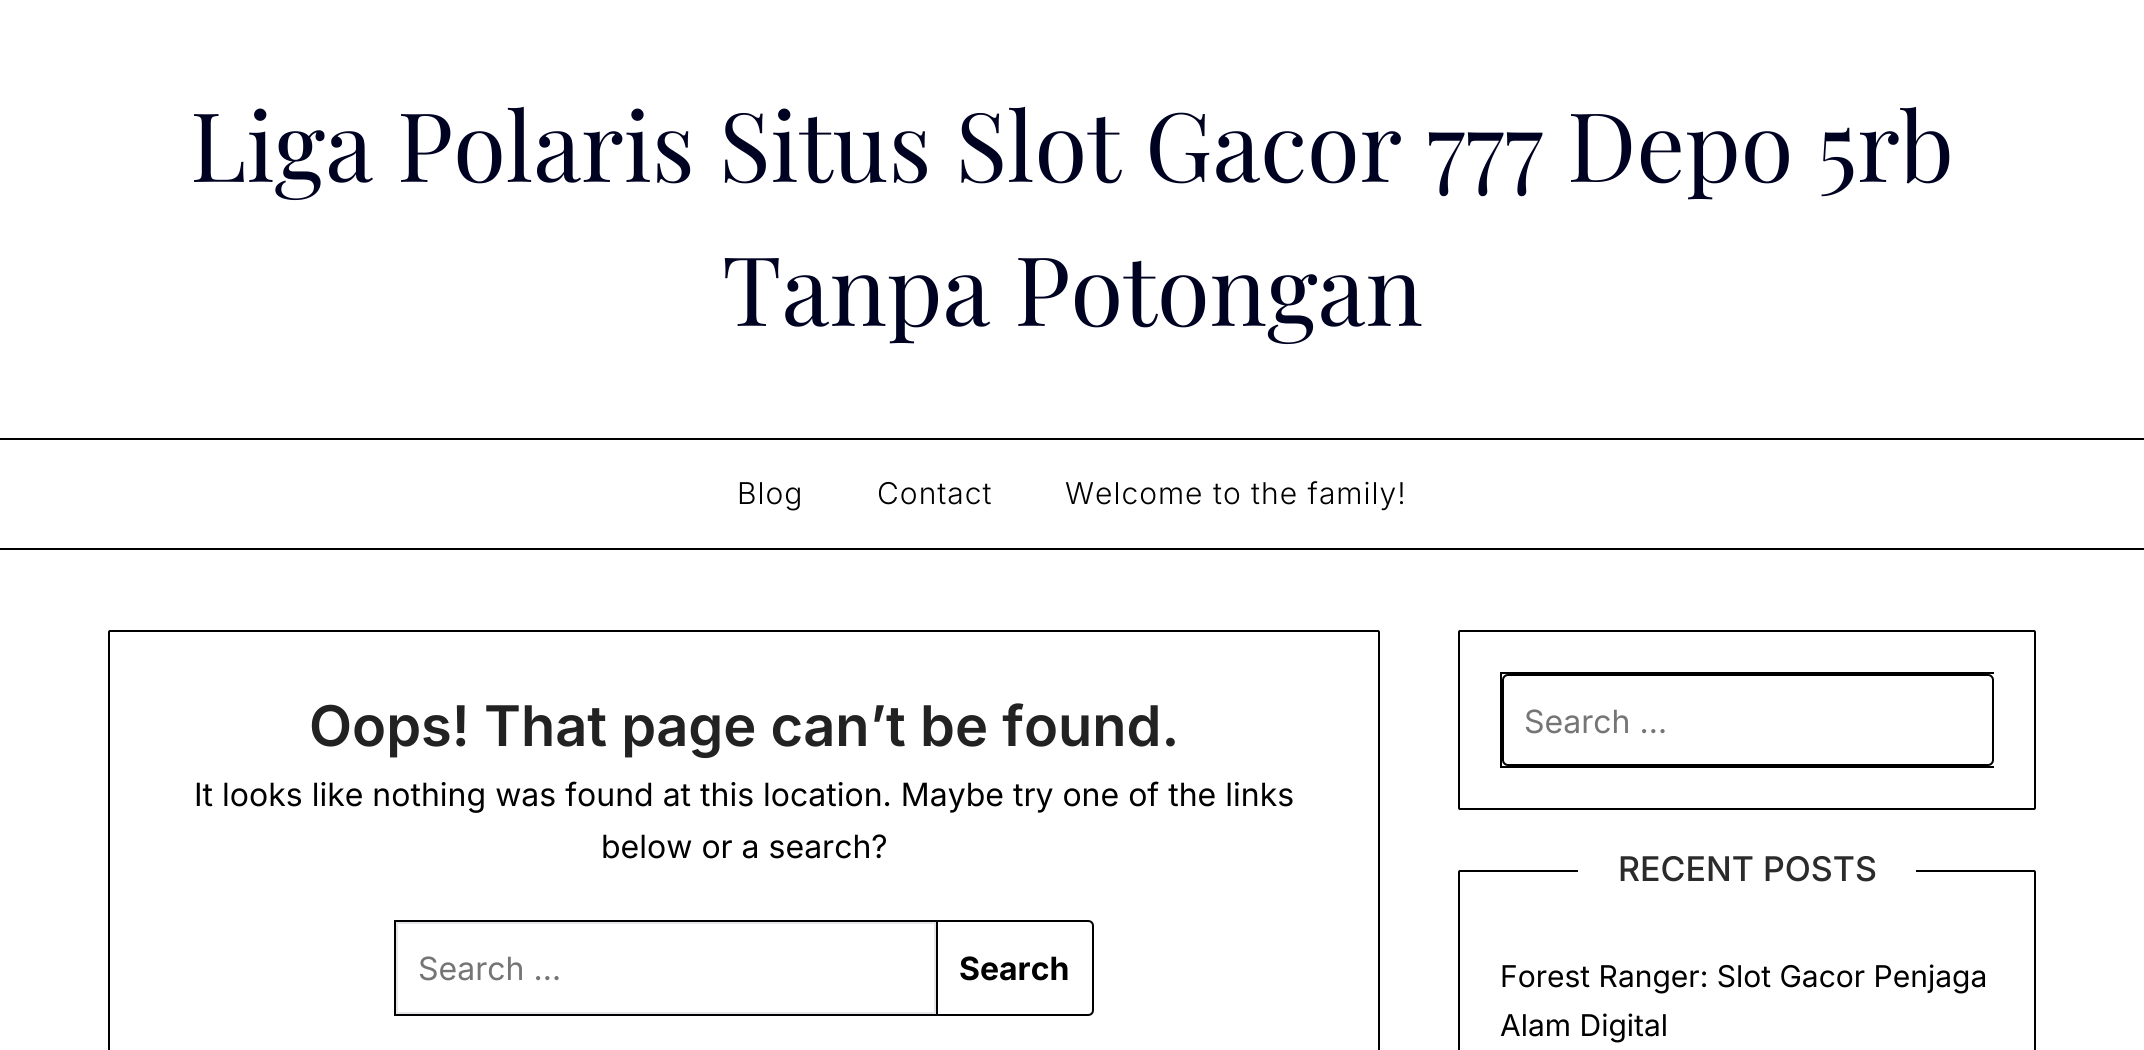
import math
import cairo

surface = cairo.ImageSurface(cairo.Format.RGB24, 2144, 1050)
ctx = cairo.Context(surface)
options = cairo.FontOptions()
options.set_hint_metrics(cairo.HintMetrics.OFF)
options.set_hint_style(cairo.HintStyle.NONE)
ctx.set_font_options(options)
ctx.set_miter_limit(4)


def ink(r, g, b):
    ctx.set_source_rgb(r / 255, g / 255, b / 255)


def write(x, y, s, family, size, color, bold=False, italic=False):
    ctx.select_font_face(family, cairo.FontSlant.ITALIC if italic else cairo.FontSlant.NORMAL, cairo.FontWeight.BOLD if bold else cairo.FontWeight.NORMAL)
    ctx.set_font_size(size)
    ink(*color)
    ctx.move_to(x, y)
    ctx.show_text(s)


def write_spaced(x, y, s, letter, word):
    ctx.move_to(x, y)
    for ch in s:
        ctx.show_text(ch)
        ctx.rel_move_to(letter + word * (ch == ' '), 0)


def block(x, y, w, h, *color):
    ink(*color)
    ctx.rectangle(x, y, w, h)
    ctx.fill()


def round_path(x, y, w, h, r):
    ctx.new_sub_path()
    for i, (u, v) in enumerate([(x + w - r, y + h - r), (x + r, y + h - r), (x + r, y + r), (x + w - r, y + r)]):
        ctx.arc(u, v, r, i * math.pi / 2, (i + 1) * math.pi / 2)
    ctx.close_path()


s1 = dict(family="Playfair Display", size=96, color=(0, 2, 34))
s2 = dict(family="Inter SemiBold", size=56, color=(34, 34, 34))
s3 = dict(family="Inter", size=32, color=(0, 0, 0))
s4 = dict(family="Inter", size=32, color=(117, 117, 117))
s5 = dict(family="Inter", size=32, color=(0, 0, 0), bold=True)
s6 = dict(family="Inter Medium", size=34, color=(43, 43, 43))
s7 = dict(family="Inter", size=30, color=(0, 0, 0))

ink(255, 255, 255)
ctx.paint()
write(190, 182, "Liga Polaris Situs Slot Gacor 777 Depo 5rb", **s1)
write(722, 326, "Tanpa Potongan", **s1)
block(0, 438, 2144, 2, 0, 0, 0)
block(0, 548, 2144, 2, 0, 0, 0)
ctx.select_font_face("Inter Light")
ctx.set_font_size(30)
write_spaced(737, 504, "Blog", 1, 0)
write_spaced(877, 504, "Contact", 1, 0)
write_spaced(1065, 504, "Welcome to the family!", 1, 0)
round_path(109, 631, 1270, 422, 1)
ctx.stroke()
write(309, 746, "Oops! That page can’t be found.", **s2)
write(194, 806, "It looks like nothing was found at this location. Maybe try one of the links", **s3)
write(601, 858, "below or a search?", **s3)
block(394, 920, 542, 2, 0, 0, 0)
block(394, 1014, 542, 2, 0, 0, 0)
block(394, 920, 2, 96, 0, 0, 0)
ctx.rectangle(397, 923, 538, 90)
ink(229, 230, 233)
ctx.stroke()
write(418, 980, "Search …", **s4)
ctx.new_path()
ctx.move_to(937, 921)
ctx.line_to(1088, 921)
ctx.curve_to(1091, 921, 1093, 923, 1093, 926)
ctx.line_to(1093, 1010)
ctx.curve_to(1093, 1013, 1091, 1015, 1088, 1015)
ctx.line_to(937, 1015)
ctx.close_path()
ink(0, 0, 0)
ctx.stroke()
write(959, 980, "Search", **s5)
round_path(1459, 631, 576, 178, 1)
ctx.stroke()
block(1500, 672, 494, 2, 0, 0, 0)
block(1500, 766, 494, 2, 0, 0, 0)
block(1500, 672, 2, 96, 0, 0, 0)
round_path(1503, 675, 490, 90, 5)
ctx.stroke()
write(1524, 733, "Search …", **s4)
round_path(1459, 871, 576, 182, 1)
ink(0, 0, 0)
ctx.stroke()
block(1578, 870, 338, 2, 255, 255, 255)
write(1618, 881, "RECENT POSTS", **s6)
write(1500, 987, "Forest Ranger: Slot Gacor Penjaga", **s7)
write(1500, 1036, "Alam Digital", **s7)
surface.write_to_png("screenshot.png")
